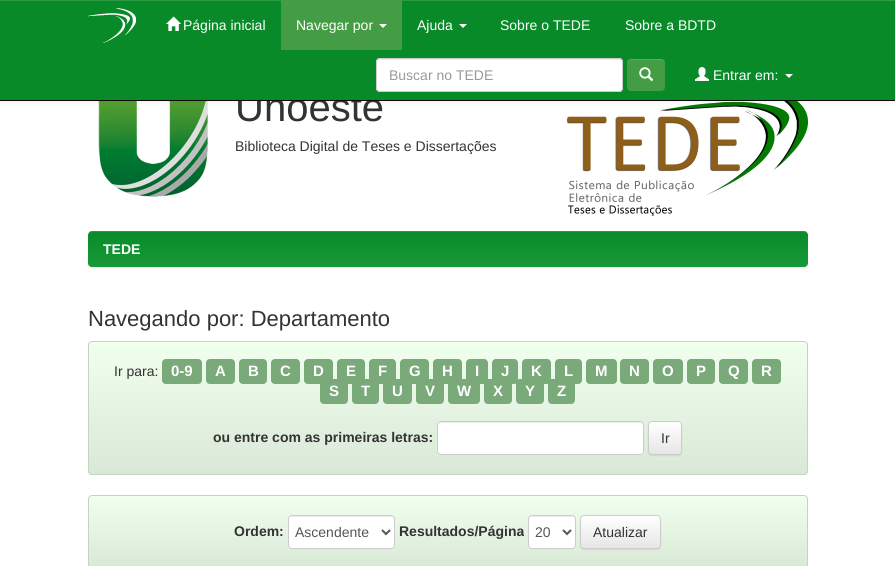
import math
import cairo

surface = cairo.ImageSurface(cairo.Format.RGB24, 895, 566)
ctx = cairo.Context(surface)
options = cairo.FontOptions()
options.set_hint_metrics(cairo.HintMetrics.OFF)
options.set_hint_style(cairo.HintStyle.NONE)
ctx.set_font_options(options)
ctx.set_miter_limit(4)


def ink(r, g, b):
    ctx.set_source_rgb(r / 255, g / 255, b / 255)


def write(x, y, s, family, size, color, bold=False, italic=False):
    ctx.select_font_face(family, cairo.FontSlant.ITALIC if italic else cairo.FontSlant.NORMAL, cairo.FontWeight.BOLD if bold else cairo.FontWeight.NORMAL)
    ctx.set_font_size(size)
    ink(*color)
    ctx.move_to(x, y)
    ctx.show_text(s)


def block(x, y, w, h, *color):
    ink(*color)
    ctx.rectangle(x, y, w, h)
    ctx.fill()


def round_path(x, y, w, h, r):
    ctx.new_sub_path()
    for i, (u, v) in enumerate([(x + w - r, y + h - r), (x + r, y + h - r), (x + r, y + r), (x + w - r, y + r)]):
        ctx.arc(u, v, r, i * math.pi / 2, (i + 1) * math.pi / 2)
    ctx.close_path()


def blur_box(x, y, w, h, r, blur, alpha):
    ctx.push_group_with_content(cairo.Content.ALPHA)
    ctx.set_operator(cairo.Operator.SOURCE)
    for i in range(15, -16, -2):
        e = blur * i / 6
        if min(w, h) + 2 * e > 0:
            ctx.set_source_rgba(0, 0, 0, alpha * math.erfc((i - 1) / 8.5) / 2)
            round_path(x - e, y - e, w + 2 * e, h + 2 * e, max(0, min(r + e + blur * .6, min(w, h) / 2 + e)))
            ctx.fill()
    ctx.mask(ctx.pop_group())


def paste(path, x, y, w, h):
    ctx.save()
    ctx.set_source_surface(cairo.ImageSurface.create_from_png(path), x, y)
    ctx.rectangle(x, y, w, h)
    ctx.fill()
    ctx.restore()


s1 = dict(family="Liberation Sans", size=40, color=(51, 51, 51))
s2 = dict(family="Liberation Sans", size=14, color=(255, 255, 255))
s3 = dict(family="Liberation Sans", size=14, color=(153, 153, 153))
s4 = dict(family="Liberation Sans", size=14, color=(51, 51, 51))
s5 = dict(family="Liberation Sans", size=14, color=(255, 255, 255), bold=True)
s6 = dict(family="Liberation Sans", size=22, color=(51, 51, 51))
s7 = dict(family="Liberation Sans", size=15, color=(255, 255, 255), bold=True)
s8 = dict(family="Liberation Sans", size=14, color=(51, 51, 51), bold=True)
s9 = dict(family="Liberation Sans", size=14, color=(85, 85, 85))

ink(255, 255, 255)
ctx.paint()
paste("pic5.png", 98, 101, 110, 96)
paste("pic6.png", 566, 101, 242, 115)
ink(0, 0, 0)
blur_box(0, 1, 895, 101, 0, 2.5, 0.07)
write(235, 121, "Unoeste", **s1)
block(0, 1, 895, 99, 8, 138, 41)
block(0, 0, 895, 1, 45, 156, 73)
block(0, 100, 895, 1, 8, 8, 8)
paste("pic1.png", 88, 8, 48, 35)
paste("pic2.png", 166, 16, 15, 15)
write(183, 30, "Página inicial", **s2)
block(281, 0, 121, 50, 68, 157, 68)
write(296, 30, "Navegar por", **s2)
ctx.new_path()
ctx.move_to(379, 24)
ctx.line_to(387, 24)
ctx.line_to(383, 28)
ctx.close_path()
ctx.fill()
write(417, 30, "Ajuda", **s2)
ctx.new_path()
ctx.move_to(459, 24)
ctx.line_to(467, 24)
ctx.line_to(463, 28)
ctx.close_path()
ctx.fill()
write(500, 30, "Sobre o TEDE", **s2)
write(625, 30, "Sobre a BDTD", **s2)
round_path(376, 58, 247, 34, 4)
ctx.fill()
ink(236, 236, 236)
ctx.new_path()
ctx.move_to(380, 60)
ctx.line_to(620, 60)
ctx.line_to(622, 61)
ctx.line_to(622, 63)
ctx.curve_to(622, 61, 621, 59, 619, 59)
ctx.line_to(380, 59)
ctx.curve_to(378, 59, 377, 61, 377, 63)
ctx.curve_to(377, 61, 378, 60, 380, 60)
ctx.close_path()
ctx.fill()
round_path(376.5, 58.5, 246, 33, 3.5)
ink(204, 204, 204)
ctx.set_line_width(1)
ctx.stroke()
write(389, 80, "Buscar no TEDE", **s3)
ink(68, 157, 68)
round_path(627, 59, 38, 32, 4)
ctx.fill()
ctx.set_source_rgba(1, 1, 1, 0.15)
ctx.set_fill_rule(cairo.FillRule.EVEN_ODD)
ctx.new_path()
ctx.move_to(631, 60)
ctx.line_to(662, 60)
ctx.curve_to(663.5, 60.5, 664.5, 61.5, 665, 63)
ctx.curve_to(665, 60.5, 663, 59, 661, 59)
ctx.line_to(631, 59)
ctx.curve_to(629, 59, 627, 61, 627, 63)
ctx.line_to(627, 63.5)
ctx.curve_to(627.5, 61.5, 628.5, 60, 631, 60)
ctx.close_path()
ctx.move_to(627, 88.5)
ctx.line_to(627, 84)
ctx.close_path()
ctx.fill()
paste("pic3.png", 639, 67, 15, 15)
paste("pic4.png", 695, 67, 14, 14)
write(713, 80, "Entrar em:", **s2)
ctx.set_fill_rule(cairo.FillRule.WINDING)
ctx.new_path()
ctx.move_to(785, 74)
ctx.line_to(793, 74)
ctx.line_to(789, 78)
ctx.close_path()
ctx.fill()
write(235, 151, "Biblioteca Digital de Teses e Dissertações", **s4)
ink(0, 0, 0)
blur_box(88, 232, 720, 36, 4, 0.5, 0.07)
gradient = cairo.LinearGradient(448, 231, 448, 267)
gradient.add_color_stop_rgba(0, 0.031, 0.541, 0.161, 1)
gradient.add_color_stop_rgba(1, 0.094, 0.604, 0.227, 1)
ctx.set_source(gradient)
round_path(88, 231, 720, 36, 4)
ctx.fill()
ctx.set_source_rgba(1, 1, 1, 0.15)
ctx.new_path()
ctx.move_to(92, 232)
ctx.line_to(804, 232)
ctx.curve_to(806, 232, 808, 234, 808, 236)
ctx.curve_to(808, 233, 807, 231, 804, 231)
ctx.line_to(92, 231)
ctx.line_to(89, 232)
ctx.line_to(88, 233)
ctx.line_to(88, 236)
ctx.curve_to(88, 234, 90, 232, 92, 232)
ctx.close_path()
ctx.fill()
write(103, 254, "TEDE", **s5)
write(88, 326, "Navegando por: Departamento", **s6)
ctx.save()
round_path(88, 341, 720, 134, 4)
ctx.clip()
gradient = cairo.LinearGradient(448, 342, 448, 474)
gradient.add_color_stop_rgba(0, 0.945, 1, 0.933, 1)
gradient.add_color_stop_rgba(1, 0.855, 0.91, 0.843, 1)
ctx.set_source(gradient)
ctx.rectangle(88, 342, 720, 132)
ctx.fill()
ctx.restore()
round_path(88.5, 341.5, 719, 133, 3.5)
ink(190, 215, 190)
ctx.stroke()
write(114, 376, "Ir para:", **s4)
ink(122, 169, 122)
round_path(162, 359, 40, 25, 4)
ctx.fill()
write(171, 376, "0-9", **s7)
ink(122, 169, 122)
round_path(206, 359, 29, 25, 4)
ctx.fill()
write(215, 376, "A", **s7)
ink(122, 169, 122)
round_path(239, 359, 28, 25, 4)
ctx.fill()
write(248, 376, "B", **s7)
ink(122, 169, 122)
round_path(271, 359, 29, 25, 4)
ctx.fill()
write(280, 376, "C", **s7)
ink(122, 169, 122)
round_path(304, 359, 29, 25, 4)
ctx.fill()
write(313, 376, "D", **s7)
ink(122, 169, 122)
round_path(337, 359, 28, 25, 4)
ctx.fill()
write(346, 376, "E", **s7)
ink(122, 169, 122)
round_path(369, 359, 27, 25, 4)
ctx.fill()
write(378, 376, "F", **s7)
ink(122, 169, 122)
round_path(400, 359, 29, 25, 4)
ctx.fill()
write(409, 376, "G", **s7)
ink(122, 169, 122)
round_path(433, 359, 29, 25, 4)
ctx.fill()
write(442, 376, "H", **s7)
ink(122, 169, 122)
round_path(466, 359, 22, 25, 4)
ctx.fill()
write(475, 376, "I", **s7)
ink(122, 169, 122)
round_path(492, 359, 26, 25, 4)
ctx.fill()
write(501, 376, "J", **s7)
ink(122, 169, 122)
round_path(522, 359, 29, 25, 4)
ctx.fill()
write(531, 376, "K", **s7)
ink(122, 169, 122)
round_path(555, 359, 27, 25, 4)
ctx.fill()
write(564, 376, "L", **s7)
ink(122, 169, 122)
round_path(586, 359, 31, 25, 4)
ctx.fill()
write(595, 376, "M", **s7)
ink(122, 169, 122)
round_path(620, 359, 29, 25, 4)
ctx.fill()
write(629, 376, "N", **s7)
ink(122, 169, 122)
round_path(653, 359, 30, 25, 4)
ctx.fill()
write(662, 376, "O", **s7)
ink(122, 169, 122)
round_path(687, 359, 28, 25, 4)
ctx.fill()
write(696, 376, "P", **s7)
ink(122, 169, 122)
round_path(719, 359, 29, 25, 4)
ctx.fill()
write(728, 376, "Q", **s7)
ink(122, 169, 122)
round_path(752, 359, 29, 25, 4)
ctx.fill()
write(761, 376, "R", **s7)
ink(122, 169, 122)
round_path(320, 379, 28, 25, 4)
ctx.fill()
write(329, 396, "S", **s7)
ink(122, 169, 122)
round_path(352, 379, 27, 25, 4)
ctx.fill()
write(361, 396, "T", **s7)
ink(122, 169, 122)
round_path(383, 379, 29, 25, 4)
ctx.fill()
write(392, 396, "U", **s7)
ink(122, 169, 122)
round_path(416, 379, 28, 25, 4)
ctx.fill()
write(425, 396, "V", **s7)
ink(122, 169, 122)
round_path(448, 379, 32, 25, 4)
ctx.fill()
write(457, 396, "W", **s7)
ink(122, 169, 122)
round_path(484, 379, 28, 25, 4)
ctx.fill()
write(493, 396, "X", **s7)
ink(122, 169, 122)
round_path(516, 379, 28, 25, 4)
ctx.fill()
write(525, 396, "Y", **s7)
ink(122, 169, 122)
round_path(548, 379, 27, 25, 4)
ctx.fill()
write(557, 396, "Z", **s7)
write(213, 442, "ou entre com as primeiras letras:", **s8)
ink(255, 255, 255)
round_path(437, 421, 207, 34, 4)
ctx.fill()
ink(236, 236, 236)
ctx.new_path()
ctx.move_to(441, 423)
ctx.line_to(640, 423)
ctx.curve_to(642, 423, 643, 424, 643, 426)
ctx.curve_to(643, 424, 642, 422, 640, 422)
ctx.line_to(441, 422)
ctx.curve_to(439, 422, 438, 424, 438, 426)
ctx.curve_to(438, 424, 439, 423, 441, 423)
ctx.close_path()
ctx.fill()
round_path(437.5, 421.5, 206, 33, 3.5)
ink(204, 204, 204)
ctx.stroke()
ink(0, 0, 0)
blur_box(648, 422, 34, 34, 4, 0.5, 0.07)
ctx.save()
round_path(648, 421, 34, 34, 4)
ctx.clip()
gradient = cairo.LinearGradient(665, 422, 665, 454)
gradient.add_color_stop_rgba(0, 1, 1, 1, 1)
gradient.add_color_stop_rgba(1, 0.902, 0.902, 0.902, 1)
ctx.set_source(gradient)
ctx.rectangle(648, 422, 34, 32)
ctx.fill()
ctx.restore()
round_path(648.5, 421.5, 33, 33, 3.5)
ink(204, 204, 204)
ctx.stroke()
write(661, 443, "Ir", **s4)
ctx.save()
round_path(88, 495, 720, 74, 4)
ctx.clip()
gradient = cairo.LinearGradient(448, 496, 448, 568)
gradient.add_color_stop_rgba(0, 0.945, 1, 0.933, 1)
gradient.add_color_stop_rgba(1, 0.855, 0.91, 0.843, 1)
ctx.set_source(gradient)
ctx.rectangle(88, 496, 720, 70)
ctx.fill()
ctx.restore()
round_path(88.5, 495.5, 719, 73, 3.5)
ink(190, 215, 190)
ctx.stroke()
write(234, 536, "Ordem:", **s8)
ink(255, 255, 255)
round_path(288, 515, 107, 34, 4)
ctx.fill()
ink(236, 236, 236)
ctx.new_path()
ctx.move_to(292, 517)
ctx.line_to(391, 517)
ctx.curve_to(393, 517, 394, 518, 394, 520)
ctx.curve_to(394, 512, 377, 516, 374, 516)
ctx.line_to(308, 516)
ctx.curve_to(306, 516, 289, 512, 289, 520)
ctx.curve_to(289, 518, 290, 517, 292, 517)
ctx.close_path()
ctx.fill()
round_path(288.5, 515.5, 106, 33, 3.5)
ink(204, 204, 204)
ctx.stroke()
ctx.new_path()
ctx.move_to(382, 530)
ctx.line_to(386, 534)
ctx.line_to(390, 530)
ink(85, 85, 85)
ctx.set_line_width(2)
ctx.stroke()
write(295, 537, "Ascendente", **s9)
write(399, 536, "Resultados/Página", **s8)
ink(255, 255, 255)
round_path(528, 515, 48, 34, 4)
ctx.fill()
ink(236, 236, 236)
ctx.new_path()
ctx.move_to(532, 517)
ctx.line_to(572, 517)
ctx.curve_to(574, 517, 575, 518, 575, 520)
ctx.curve_to(575, 515, 570, 516, 565, 516)
ctx.line_to(539, 516)
ctx.curve_to(534, 516, 529, 515, 529, 520)
ctx.curve_to(529, 518, 530, 517, 532, 517)
ctx.close_path()
ctx.fill()
round_path(528.5, 515.5, 47, 33, 3.5)
ink(204, 204, 204)
ctx.set_line_width(1)
ctx.stroke()
ctx.new_path()
ctx.move_to(563, 530)
ctx.line_to(567, 534)
ctx.line_to(571, 530)
ink(85, 85, 85)
ctx.set_line_width(2)
ctx.stroke()
write(535, 537, "20", **s9)
ink(0, 0, 0)
blur_box(580, 516, 81, 34, 4, 0.5, 0.07)
ctx.save()
round_path(580, 515, 81, 34, 4)
ctx.clip()
gradient = cairo.LinearGradient(621, 516, 621, 548)
gradient.add_color_stop_rgba(0, 1, 1, 1, 1)
gradient.add_color_stop_rgba(1, 0.902, 0.902, 0.902, 1)
ctx.set_source(gradient)
ctx.rectangle(580, 516, 81, 32)
ctx.fill()
ctx.restore()
round_path(580.5, 515.5, 80, 33, 3.5)
ink(204, 204, 204)
ctx.set_line_width(1)
ctx.stroke()
write(593, 537, "Atualizar", **s4)
surface.write_to_png("screenshot.png")
